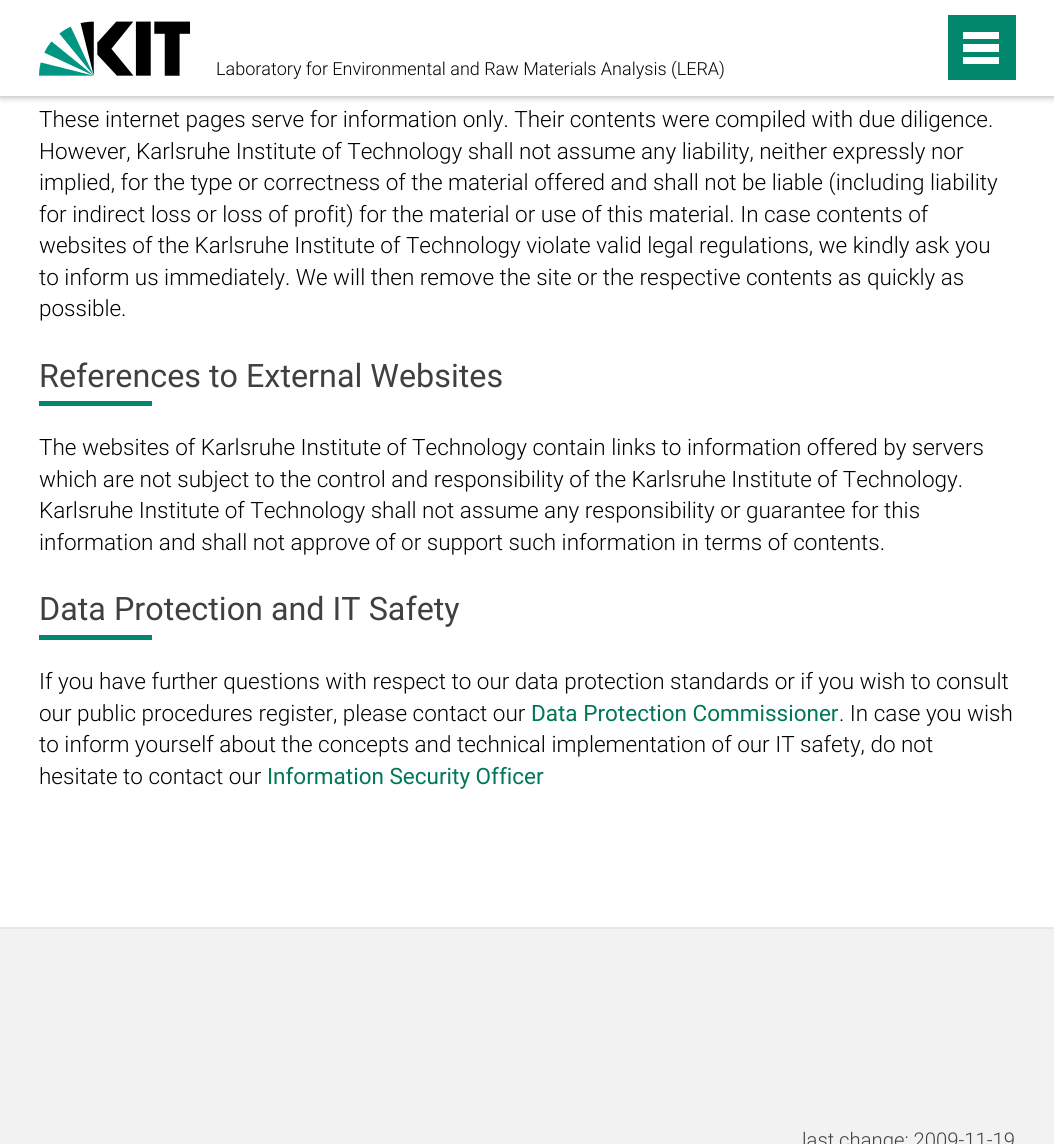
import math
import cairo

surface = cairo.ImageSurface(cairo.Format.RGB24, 1054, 1144)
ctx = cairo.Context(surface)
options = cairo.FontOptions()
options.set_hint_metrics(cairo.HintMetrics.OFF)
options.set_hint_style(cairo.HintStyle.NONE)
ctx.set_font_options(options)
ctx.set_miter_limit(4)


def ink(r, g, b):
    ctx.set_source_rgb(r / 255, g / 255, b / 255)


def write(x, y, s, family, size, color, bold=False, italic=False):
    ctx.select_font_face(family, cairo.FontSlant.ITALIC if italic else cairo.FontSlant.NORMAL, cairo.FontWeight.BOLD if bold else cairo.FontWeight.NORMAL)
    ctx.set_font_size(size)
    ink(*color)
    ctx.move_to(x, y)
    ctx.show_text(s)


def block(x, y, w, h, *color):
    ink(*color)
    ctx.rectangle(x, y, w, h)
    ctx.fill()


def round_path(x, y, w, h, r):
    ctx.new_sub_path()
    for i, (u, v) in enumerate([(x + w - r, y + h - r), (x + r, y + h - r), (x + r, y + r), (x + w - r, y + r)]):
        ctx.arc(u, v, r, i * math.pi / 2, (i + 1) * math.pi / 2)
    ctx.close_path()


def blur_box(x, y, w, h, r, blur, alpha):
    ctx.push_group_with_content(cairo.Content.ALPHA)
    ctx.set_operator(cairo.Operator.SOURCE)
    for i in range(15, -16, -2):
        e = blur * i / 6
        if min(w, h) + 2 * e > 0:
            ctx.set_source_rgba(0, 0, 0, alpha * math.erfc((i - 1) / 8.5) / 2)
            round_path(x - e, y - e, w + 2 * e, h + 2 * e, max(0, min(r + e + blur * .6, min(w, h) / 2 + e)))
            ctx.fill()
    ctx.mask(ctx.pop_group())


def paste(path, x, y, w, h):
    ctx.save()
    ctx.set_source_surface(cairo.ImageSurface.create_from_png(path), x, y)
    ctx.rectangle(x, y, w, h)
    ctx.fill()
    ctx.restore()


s1 = dict(family="Roboto Light", size=18, color=(0, 0, 0))
s2 = dict(family="Roboto Light", size=22.5, color=(0, 0, 0))
s3 = dict(family="Roboto", size=32.3, color=(64, 64, 64))
s4 = dict(family="Roboto", size=22.5, color=(0, 119, 85))
s5 = dict(family="Roboto Light", size=20.25, color=(64, 64, 64))

ink(255, 255, 255)
ctx.paint()
ink(64, 64, 64)
blur_box(0, 0, 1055, 96, 0, 4, 0.5)
block(0, 0, 1054, 96, 255, 255, 255)
paste("pic1.png", 39, 21, 152, 55)
write(216, 75, "Laboratory for Environmental and Raw Materials Analysis (LERA)", **s1)
block(948, 15, 68, 65, 0, 135, 108)
block(963, 57, 36, 7, 255, 255, 255)
block(963, 44, 36, 8, 255, 255, 255)
block(963, 32, 36, 7, 255, 255, 255)
write(39, 127, "These internet pages serve for information only. Their contents were compiled with due diligence.", **s2)
write(39, 159, "However, Karlsruhe Institute of Technology shall not assume any liability, neither expressly nor", **s2)
write(39, 190, "implied, for the type or correctness of the material offered and shall not be liable (including liability", **s2)
write(39, 222, "for indirect loss or loss of profit) for the material or use of this material. In case contents of", **s2)
write(39, 253, "websites of the Karlsruhe Institute of Technology violate valid legal regulations, we kindly ask you", **s2)
write(39, 285, "to inform us immediately. We will then remove the site or the respective contents as quickly as", **s2)
write(39, 316, "possible.", **s2)
write(39, 387, "References to External Websites", **s3)
block(39, 401, 113, 5, 0, 135, 108)
write(39, 455, "The websites of Karlsruhe Institute of Technology contain links to information offered by servers", **s2)
write(39, 487, "which are not subject to the control and responsibility of the Karlsruhe Institute of Technology.", **s2)
write(39, 518, "Karlsruhe Institute of Technology shall not assume any responsibility or guarantee for this", **s2)
write(39, 550, "information and shall not approve of or support such information in terms of contents.", **s2)
write(39, 620, "Data Protection and IT Safety", **s3)
block(39, 635, 113, 5, 0, 135, 108)
write(39, 689, "If you have further questions with respect to our data protection standards or if you wish to consult", **s2)
write(39, 721, "our public procedures register, please contact our", **s2)
write(531, 721, "Data Protection Commissioner", **s4)
write(839, 721, ". In case you wish", **s2)
write(39, 752, "to inform yourself about the concepts and technical implementation of our IT safety, do not", **s2)
write(39, 784, "hesitate to contact our", **s2)
write(267, 784, "Information Security Officer", **s4)
block(0, 929, 1054, 215, 242, 242, 242)
block(0, 927, 1054, 2, 230, 230, 230)
write(802, 1147, "last change: 2009-11-19", **s5)
surface.write_to_png("screenshot.png")
